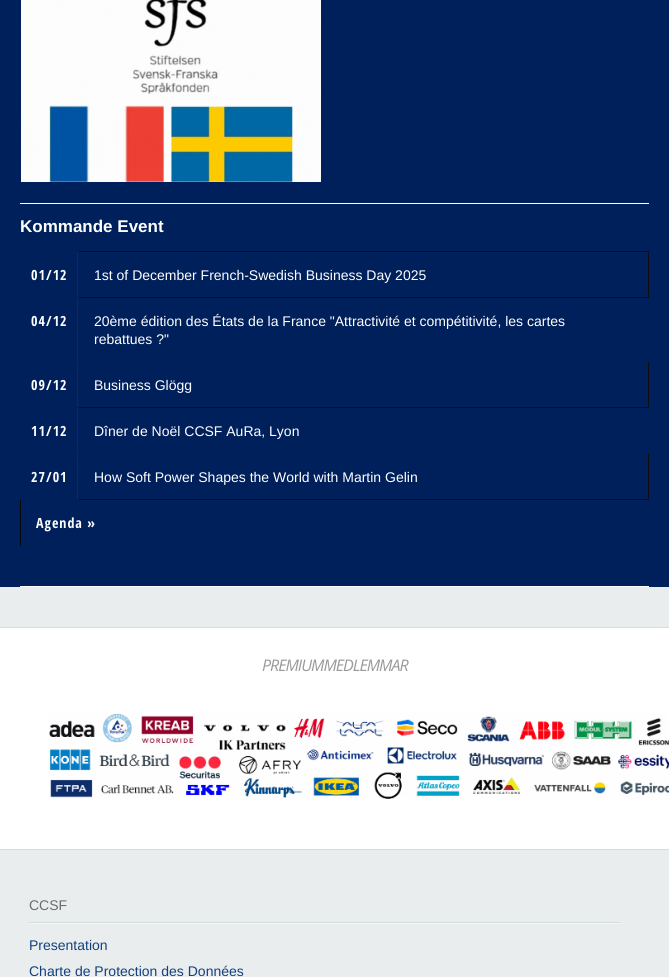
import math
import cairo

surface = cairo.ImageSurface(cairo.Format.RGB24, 669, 977)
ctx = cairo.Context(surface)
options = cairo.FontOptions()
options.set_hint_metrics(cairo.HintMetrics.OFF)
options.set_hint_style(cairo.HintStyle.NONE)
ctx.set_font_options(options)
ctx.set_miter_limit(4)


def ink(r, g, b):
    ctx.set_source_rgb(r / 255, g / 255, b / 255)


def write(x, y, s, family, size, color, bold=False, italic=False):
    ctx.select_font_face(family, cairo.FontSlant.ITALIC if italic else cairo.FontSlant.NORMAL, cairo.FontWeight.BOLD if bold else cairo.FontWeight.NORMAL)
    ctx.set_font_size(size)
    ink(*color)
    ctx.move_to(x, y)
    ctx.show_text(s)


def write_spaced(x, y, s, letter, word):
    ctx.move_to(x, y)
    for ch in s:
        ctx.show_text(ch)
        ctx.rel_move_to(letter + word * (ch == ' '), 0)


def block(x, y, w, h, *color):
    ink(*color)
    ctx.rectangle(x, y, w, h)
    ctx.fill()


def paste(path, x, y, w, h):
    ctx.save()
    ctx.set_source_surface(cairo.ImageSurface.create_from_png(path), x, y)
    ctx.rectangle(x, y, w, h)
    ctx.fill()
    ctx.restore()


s1 = dict(family="Liberation Sans", size=17, color=(255, 255, 255), bold=True)
s2 = dict(family="Liberation Sans", size=14, color=(255, 255, 255))
s3 = dict(family="Liberation Sans", size=14, color=(107, 108, 110))
s4 = dict(family="Liberation Sans", size=14, color=(20, 65, 126))

ink(233, 237, 238)
ctx.paint()
block(0, 0, 669, 587, 0, 32, 91)
block(20, 203, 629, 1, 255, 255, 255)
paste("pic1.png", 21, 0, 300, 182)
write(20, 232, "Kommande Event", **s1)
block(78, 251, 571, 1, 14, 14, 14)
block(78, 251, 1, 1, 0, 32, 91)
block(648, 251, 1, 47, 14, 14, 14)
block(77, 252, 1, 248, 11, 42, 98)
block(77, 297, 2, 1, 0, 32, 91)
block(78, 297, 571, 1, 14, 14, 14)
block(78, 297, 1, 1, 0, 32, 91)
ctx.select_font_face("Open Sans Condensed", cairo.FontSlant.NORMAL, cairo.FontWeight.BOLD)
ctx.set_font_size(14)
ink(255, 255, 255)
write_spaced(31, 280, "01/12", 1, 0)
write(94, 280, "1st of December French-Swedish Business Day 2025", **s2)
ctx.select_font_face("Open Sans Condensed", cairo.FontSlant.NORMAL, cairo.FontWeight.BOLD)
write_spaced(31, 326, "04/12", 1, 0)
block(648, 361, 1, 47, 14, 14, 14)
block(648, 361, 1, 1, 0, 32, 91)
write(94, 326, "20ème édition des États de la France \"Attractivité et compétitivité, les cartes", **s2)
write(94, 344, "rebattues ?\"", **s2)
block(77, 361, 2, 1, 0, 32, 91)
block(77, 407, 2, 1, 0, 32, 91)
block(78, 407, 571, 1, 14, 14, 14)
block(78, 407, 1, 1, 0, 32, 91)
ctx.select_font_face("Open Sans Condensed", cairo.FontSlant.NORMAL, cairo.FontWeight.BOLD)
ink(255, 255, 255)
write_spaced(31, 390, "09/12", 1, 0)
write(94, 390, "Business Glögg", **s2)
ctx.select_font_face("Open Sans Condensed", cairo.FontSlant.NORMAL, cairo.FontWeight.BOLD)
write_spaced(31, 436, "11/12", 1, 0)
block(648, 453, 1, 47, 14, 14, 14)
block(648, 453, 1, 1, 0, 32, 91)
write(94, 436, "Dîner de Noël CCSF AuRa, Lyon", **s2)
block(77, 453, 2, 1, 0, 32, 91)
block(78, 499, 571, 1, 14, 14, 14)
block(20, 499, 1, 47, 7, 7, 7)
block(20, 499, 59, 1, 0, 32, 91)
ctx.select_font_face("Open Sans Condensed", cairo.FontSlant.NORMAL, cairo.FontWeight.BOLD)
ink(255, 255, 255)
write_spaced(31, 482, "27/01", 1, 0)
write(94, 482, "How Soft Power Shapes the World with Martin Gelin", **s2)
ctx.select_font_face("Open Sans Condensed", cairo.FontSlant.NORMAL, cairo.FontWeight.BOLD)
write_spaced(36, 528, "Agenda »", 1, 0)
block(20, 586, 629, 1, 255, 255, 255)
block(0, 628, 669, 221, 255, 255, 255)
block(0, 627, 669, 1, 212, 222, 225)
block(0, 849, 669, 1, 212, 222, 225)
ctx.select_font_face("Open Sans", cairo.FontSlant.ITALIC)
ctx.set_font_size(16)
ink(153, 153, 153)
write_spaced(262, 671, "PREMIUMMEDLEMMAR", -1, 0)
paste("pic2.png", 49, 713, 620, 86)
block(29, 923, 591, 1, 246, 249, 250)
block(29, 922, 591, 1, 209, 220, 223)
write(29, 910, "CCSF", **s3)
write(29, 950, "Presentation", **s4)
write(29, 976, "Charte de Protection des Données", **s4)
surface.write_to_png("screenshot.png")
